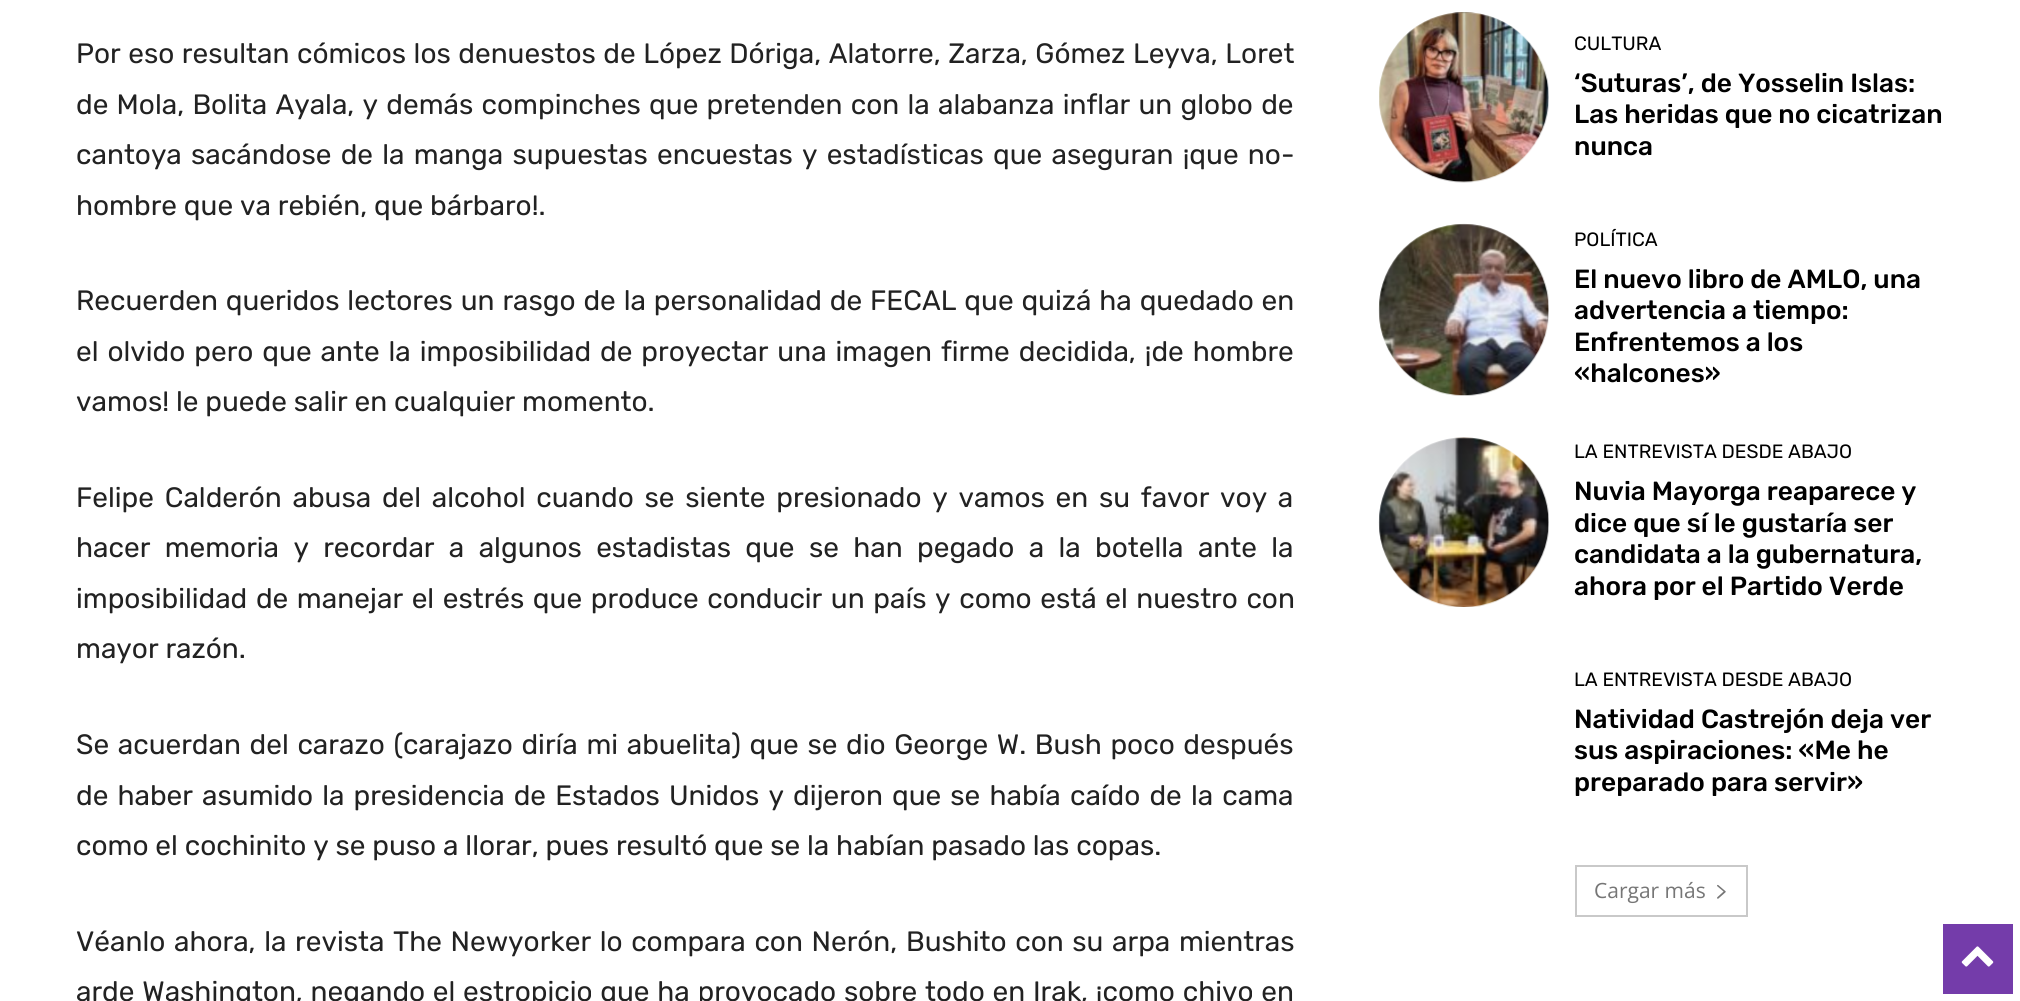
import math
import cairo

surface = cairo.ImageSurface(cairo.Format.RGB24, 2020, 1001)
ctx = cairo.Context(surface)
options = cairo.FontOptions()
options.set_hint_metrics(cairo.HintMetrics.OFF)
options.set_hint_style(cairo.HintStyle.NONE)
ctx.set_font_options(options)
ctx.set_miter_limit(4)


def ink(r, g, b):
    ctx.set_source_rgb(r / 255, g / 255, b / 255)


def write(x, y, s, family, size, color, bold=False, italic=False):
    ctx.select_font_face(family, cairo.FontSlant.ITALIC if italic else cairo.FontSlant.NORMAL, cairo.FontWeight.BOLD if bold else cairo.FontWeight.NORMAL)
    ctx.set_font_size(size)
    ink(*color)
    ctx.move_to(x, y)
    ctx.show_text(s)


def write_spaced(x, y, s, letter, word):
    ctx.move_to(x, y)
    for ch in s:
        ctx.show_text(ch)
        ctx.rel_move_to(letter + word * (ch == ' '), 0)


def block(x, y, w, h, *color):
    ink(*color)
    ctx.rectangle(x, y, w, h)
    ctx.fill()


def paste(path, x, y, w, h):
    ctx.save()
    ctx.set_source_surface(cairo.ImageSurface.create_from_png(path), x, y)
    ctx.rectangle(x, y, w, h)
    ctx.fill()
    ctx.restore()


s1 = dict(family="Rubik", size=28, color=(34, 34, 34))
s2 = dict(family="Rubik", size=19.25, color=(0, 0, 0))
s3 = dict(family="Rubik Medium", size=26.25, color=(0, 0, 0))
s4 = dict(family="Open Sans", size=21, color=(118, 118, 118))

ink(255, 255, 255)
ctx.paint()
ctx.select_font_face("Rubik")
ctx.set_font_size(28)
ink(34, 34, 34)
write_spaced(76, 63, "Por eso resultan cómicos los denuestos de López Dóriga, Alatorre, Zarza, Gómez Leyva, Loret", 0, 0.7)
write_spaced(76, 114, "de Mola, Bolita Ayala, y demás compinches que pretenden con la alabanza inflar un globo de", 0, 1.4)
write_spaced(76, 164, "cantoya sacándose de la manga supuestas encuestas y estadísticas que aseguran ¡que no-", 0, 2.4)
write(76, 215, "hombre que va rebién, que bárbaro!.", **s1)
write_spaced(76, 310, "Recuerden queridos lectores un rasgo de la personalidad de FECAL que quizá ha quedado en", 0, 1)
write_spaced(76, 361, "el olvido pero que ante la imposibilidad de proyectar una imagen firme decidida, ¡de hombre", 0, 2.1)
write(76, 411, "vamos! le puede salir en cualquier momento.", **s1)
write_spaced(76, 507, "Felipe Calderón abusa del alcohol cuando se siente presionado y vamos en su favor voy a", 0, 3.9)
write_spaced(76, 557, "hacer memoria y recordar a algunos estadistas que se han pegado a la botella ante la", 0, 7.5)
write_spaced(76, 608, "imposibilidad de manejar el estrés que produce conducir un país y como está el nuestro con", 0, 1.75)
write(76, 658, "mayor razón.", **s1)
write_spaced(76, 754, "Se acuerdan del carazo (carajazo diría mi abuelita) que se dio George W. Bush poco después", 0, 1.8)
write_spaced(76, 805, "de haber asumido la presidencia de Estados Unidos y dijeron que se había caído de la cama", 0, 2.25)
write(76, 855, "como el cochinito y se puso a llorar, pues resultó que se la habían pasado las copas.", **s1)
write_spaced(76, 951, "Véanlo ahora, la revista The Newyorker lo compara con Nerón, Bushito con su arpa mientras", 0, 1.75)
write_spaced(76, 1001, "arde Washington, negando el estropicio que ha provocado sobre todo en Irak, ¡como chivo en", 0, 0.9)
paste("pic1.png", 1379, 12, 170, 171)
write(1574, 50, "CULTURA", **s2)
write(1574, 92, "‘Suturas’, de Yosselin Islas:", **s3)
write(1574, 123, "Las heridas que no cicatrizan", **s3)
write(1574, 155, "nunca", **s3)
paste("pic2.png", 1378, 223, 171, 173)
write(1574, 246, "POLÍTICA", **s2)
write(1574, 288, "El nuevo libro de AMLO, una", **s3)
write(1574, 319, "advertencia a tiempo:", **s3)
write(1574, 351, "Enfrentemos a los", **s3)
write(1574, 382, "«halcones»", **s3)
paste("pic3.png", 1378, 437, 171, 170)
write(1574, 458, "LA ENTREVISTA DESDE ABAJO", **s2)
write(1574, 500, "Nuvia Mayorga reaparece y", **s3)
write(1574, 532, "dice que sí le gustaría ser", **s3)
write(1574, 563, "candidata a la gubernatura,", **s3)
write(1574, 595, "ahora por el Partido Verde", **s3)
write(1574, 686, "LA ENTREVISTA DESDE ABAJO", **s2)
write(1574, 728, "Natividad Castrejón deja ver", **s3)
write(1574, 759, "sus aspiraciones: «Me he", **s3)
write(1574, 791, "preparado para servir»", **s3)
ctx.rectangle(1576, 866, 171, 50)
ink(201, 201, 201)
ctx.stroke()
write(1594, 898, "Cargar más", **s4)
paste("pic4.png", 1717, 884, 9, 15)
block(1943, 924, 70, 70, 116, 60, 170)
paste("pic5.png", 1961, 946, 33, 21)
surface.write_to_png("screenshot.png")
